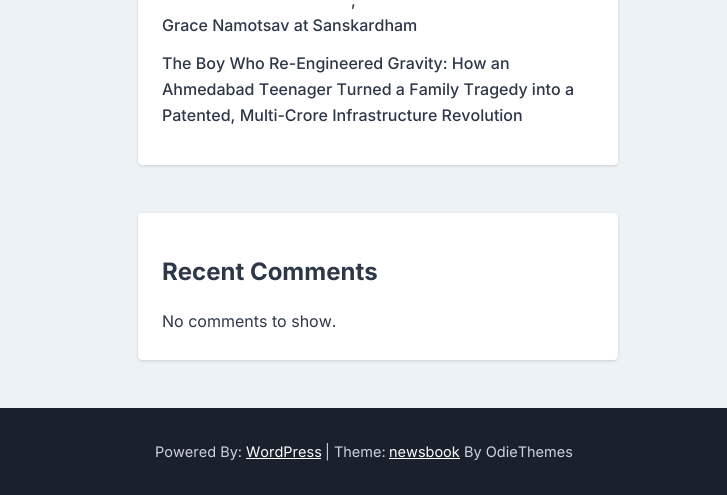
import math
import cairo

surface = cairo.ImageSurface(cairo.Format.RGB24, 727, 495)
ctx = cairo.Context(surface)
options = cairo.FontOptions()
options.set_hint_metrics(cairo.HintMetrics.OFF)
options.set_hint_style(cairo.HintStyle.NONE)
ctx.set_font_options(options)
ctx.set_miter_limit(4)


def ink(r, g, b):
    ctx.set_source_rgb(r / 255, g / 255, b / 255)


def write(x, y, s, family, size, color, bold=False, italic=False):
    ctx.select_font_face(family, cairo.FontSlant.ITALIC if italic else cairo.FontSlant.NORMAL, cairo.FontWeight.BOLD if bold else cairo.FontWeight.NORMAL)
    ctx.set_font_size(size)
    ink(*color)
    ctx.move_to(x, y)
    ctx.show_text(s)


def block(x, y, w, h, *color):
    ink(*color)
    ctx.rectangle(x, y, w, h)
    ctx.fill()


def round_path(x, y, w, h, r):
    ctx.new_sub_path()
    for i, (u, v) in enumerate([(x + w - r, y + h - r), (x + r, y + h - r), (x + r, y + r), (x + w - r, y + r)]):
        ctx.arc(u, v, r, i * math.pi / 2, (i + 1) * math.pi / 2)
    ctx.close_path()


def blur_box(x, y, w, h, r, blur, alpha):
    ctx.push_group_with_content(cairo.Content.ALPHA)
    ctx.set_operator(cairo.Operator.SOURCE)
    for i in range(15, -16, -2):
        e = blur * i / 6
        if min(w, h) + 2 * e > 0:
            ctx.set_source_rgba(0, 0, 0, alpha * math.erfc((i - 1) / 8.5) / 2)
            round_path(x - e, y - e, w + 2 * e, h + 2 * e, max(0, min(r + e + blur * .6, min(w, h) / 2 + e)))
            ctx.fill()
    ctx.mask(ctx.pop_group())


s1 = dict(family="Inter Medium", size=16, color=(45, 55, 72))
s2 = dict(family="Inter", size=24, color=(45, 55, 72), bold=True)
s3 = dict(family="Inter", size=16, color=(45, 55, 72))
s4 = dict(family="Inter", size=14.5, color=(203, 213, 224))
s5 = dict(family="Inter", size=14.5, color=(255, 255, 255))

ink(237, 242, 247)
ctx.paint()
ink(0, 0, 0)
blur_box(138, -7, 480, 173, 4, 1, 0.06)
blur_box(138, -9, 480, 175, 4, 1.5, 0.1)
ink(255, 255, 255)
round_path(138, -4, 480, 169, 4)
ctx.fill()
write(351, 6, ",", **s1)
write(162, 31, "Grace Namotsav at Sanskardham", **s1)
write(162, 69, "The Boy Who Re-Engineered Gravity: How an", **s1)
write(162, 95, "Ahmedabad Teenager Turned a Family Tragedy into a", **s1)
write(162, 121, "Patented, Multi-Crore Infrastructure Revolution", **s1)
ink(0, 0, 0)
blur_box(138, 214, 480, 147, 4, 1, 0.06)
blur_box(138, 214, 480, 147, 4, 1.5, 0.1)
ink(255, 255, 255)
round_path(138, 213, 480, 147, 4)
ctx.fill()
write(162, 280, "Recent Comments", **s2)
write(162, 327, "No comments to show.", **s3)
block(0, 408, 727, 87, 26, 32, 44)
write(155, 457, "Powered By:", **s4)
write(246, 457, "WordPress", **s5)
block(246, 458, 75, 1, 255, 255, 255)
write(325, 457, "| Theme:", **s4)
write(389, 457, "newsbook", **s5)
block(389, 458, 71, 1, 255, 255, 255)
write(464, 457, "By OdieThemes", **s4)
surface.write_to_png("screenshot.png")
